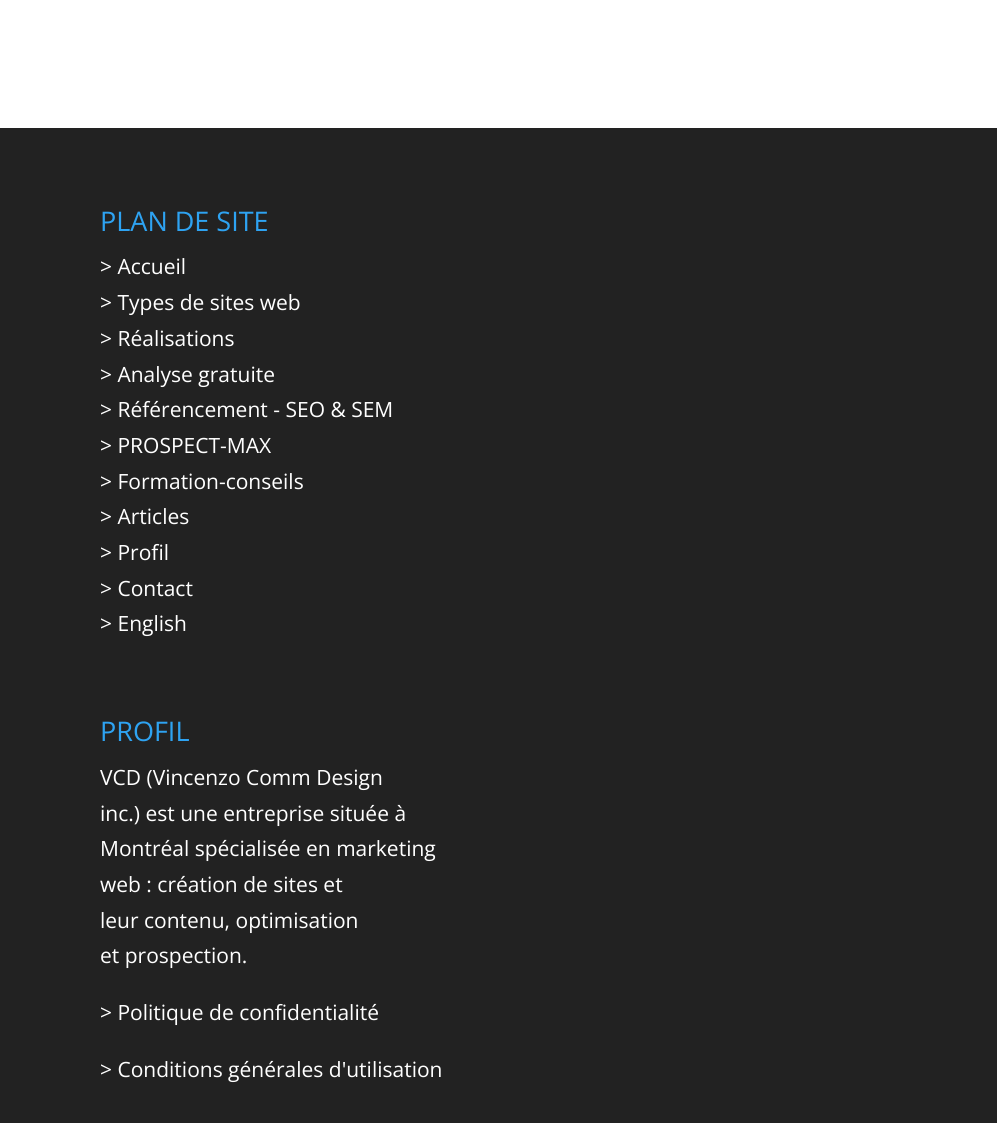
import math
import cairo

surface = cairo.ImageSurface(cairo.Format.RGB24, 997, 1123)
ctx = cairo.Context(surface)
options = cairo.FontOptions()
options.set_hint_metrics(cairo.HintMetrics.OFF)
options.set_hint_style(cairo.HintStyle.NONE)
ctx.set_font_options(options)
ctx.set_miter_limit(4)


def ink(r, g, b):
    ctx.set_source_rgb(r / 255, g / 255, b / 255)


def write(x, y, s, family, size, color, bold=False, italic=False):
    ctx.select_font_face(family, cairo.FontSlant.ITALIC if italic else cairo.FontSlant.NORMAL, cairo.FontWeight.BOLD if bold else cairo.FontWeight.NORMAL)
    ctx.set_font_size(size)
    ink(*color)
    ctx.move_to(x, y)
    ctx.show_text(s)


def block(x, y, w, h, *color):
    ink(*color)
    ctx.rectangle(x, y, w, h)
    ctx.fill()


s1 = dict(family="Open Sans", size=27, color=(46, 163, 242))
s2 = dict(family="Open Sans", size=21, color=(255, 255, 255))

ink(255, 255, 255)
ctx.paint()
block(0, 128, 997, 995, 34, 34, 34)
write(100, 231, "PLAN DE SITE", **s1)
write(100, 274, "> Accueil", **s2)
write(100, 310, "> Types de sites web", **s2)
write(100, 346, "> Réalisations", **s2)
write(100, 382, "> Analyse gratuite", **s2)
write(100, 417, "> Référencement - SEO & SEM", **s2)
write(100, 453, "> PROSPECT-MAX", **s2)
write(100, 489, "> Formation-conseils", **s2)
write(100, 524, "> Articles", **s2)
write(100, 560, "> Profil", **s2)
write(100, 596, "> Contact", **s2)
write(100, 631, "> English", **s2)
write(100, 741, "PROFIL", **s1)
write(100, 785, "VCD (Vincenzo Comm Design", **s2)
write(100, 821, "inc.) est une entreprise située à", **s2)
write(100, 856, "Montréal spécialisée en marketing", **s2)
write(100, 892, "web : création de sites et", **s2)
write(100, 928, "leur contenu, optimisation", **s2)
write(100, 963, "et prospection.", **s2)
write(100, 1020, "> Politique de confidentialité", **s2)
write(100, 1077, "> Conditions générales d'utilisation", **s2)
surface.write_to_png("screenshot.png")
